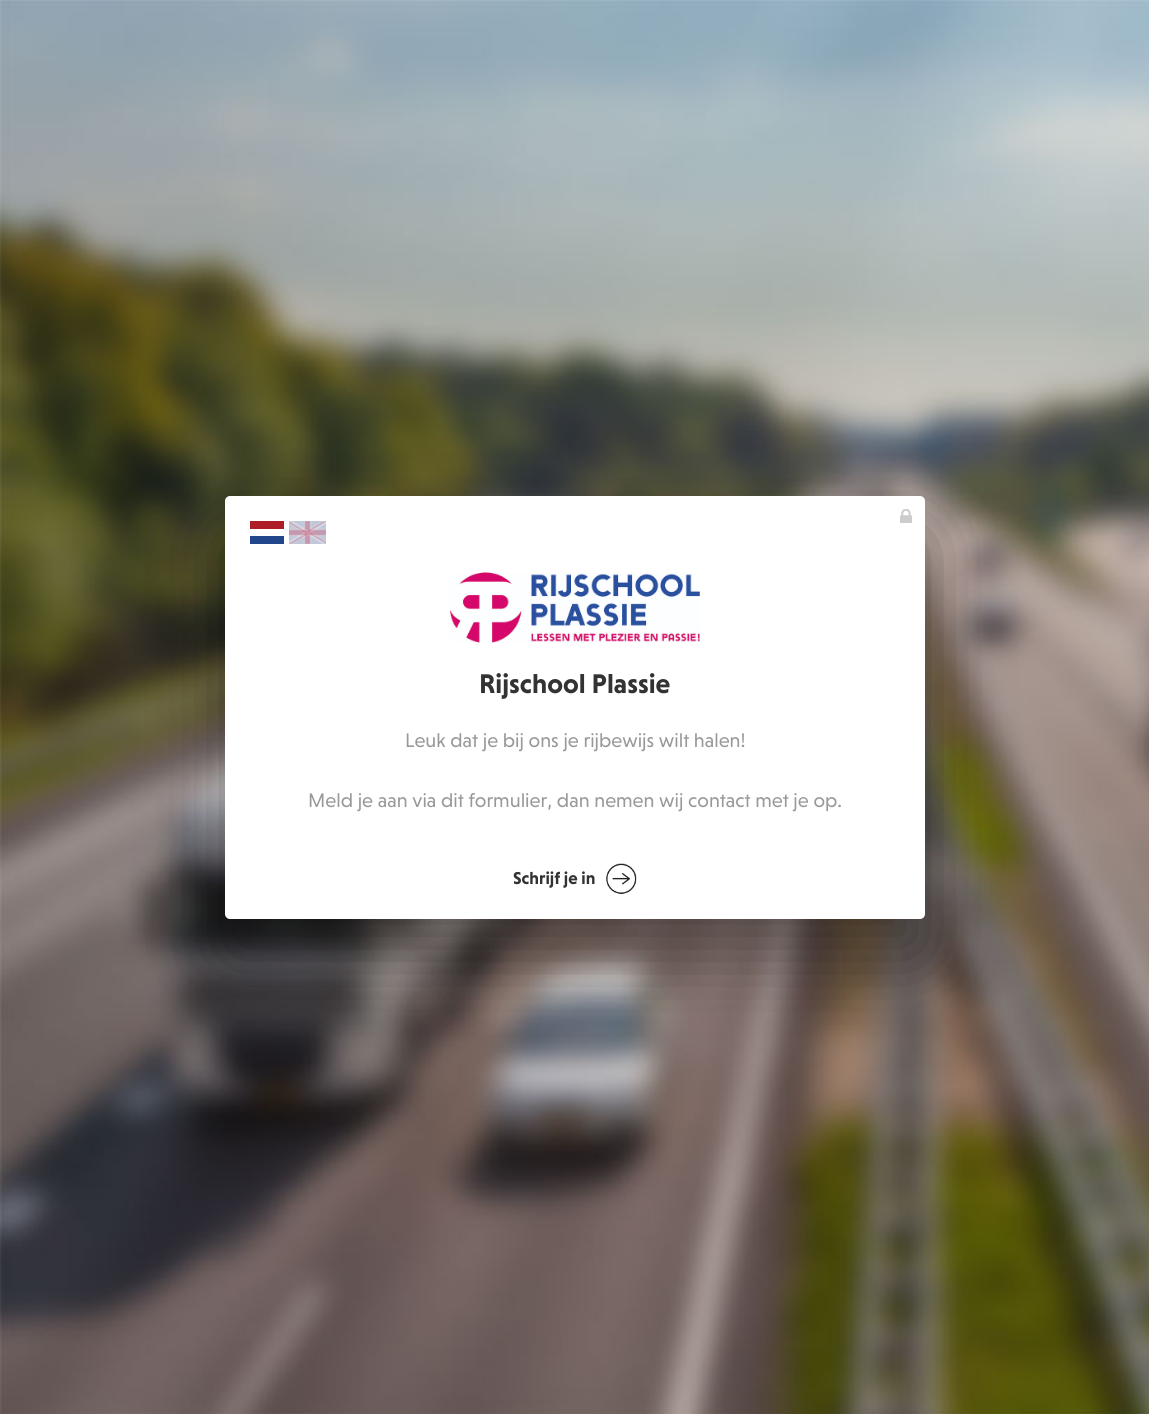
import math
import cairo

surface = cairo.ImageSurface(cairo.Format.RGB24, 1149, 1414)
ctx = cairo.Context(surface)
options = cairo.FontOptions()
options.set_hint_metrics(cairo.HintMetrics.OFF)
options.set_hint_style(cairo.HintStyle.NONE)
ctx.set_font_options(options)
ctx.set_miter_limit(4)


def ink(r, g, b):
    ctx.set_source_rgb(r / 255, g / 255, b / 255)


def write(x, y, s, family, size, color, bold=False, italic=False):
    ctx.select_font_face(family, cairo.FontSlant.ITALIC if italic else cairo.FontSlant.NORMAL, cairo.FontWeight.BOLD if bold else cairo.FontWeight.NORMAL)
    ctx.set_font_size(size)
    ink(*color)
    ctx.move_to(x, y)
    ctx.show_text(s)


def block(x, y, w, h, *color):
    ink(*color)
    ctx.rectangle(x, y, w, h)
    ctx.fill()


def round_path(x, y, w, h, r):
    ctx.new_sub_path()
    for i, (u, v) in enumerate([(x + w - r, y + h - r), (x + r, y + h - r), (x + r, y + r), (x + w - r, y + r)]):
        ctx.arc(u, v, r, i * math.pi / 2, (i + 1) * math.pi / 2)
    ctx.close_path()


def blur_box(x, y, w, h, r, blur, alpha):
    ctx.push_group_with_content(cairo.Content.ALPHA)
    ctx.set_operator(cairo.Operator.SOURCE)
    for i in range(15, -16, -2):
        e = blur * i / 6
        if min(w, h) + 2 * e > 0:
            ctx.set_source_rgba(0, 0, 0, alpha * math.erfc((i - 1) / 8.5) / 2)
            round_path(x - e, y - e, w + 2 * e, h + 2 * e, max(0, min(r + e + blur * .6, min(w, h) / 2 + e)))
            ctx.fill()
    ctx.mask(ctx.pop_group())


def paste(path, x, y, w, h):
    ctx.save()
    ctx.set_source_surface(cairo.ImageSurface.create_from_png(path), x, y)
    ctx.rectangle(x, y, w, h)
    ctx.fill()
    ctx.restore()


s1 = dict(family="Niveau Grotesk", size=27.5, color=(51, 51, 51), bold=True)
s2 = dict(family="Niveau Grotesk", size=20, color=(153, 153, 153))
s3 = dict(family="Niveau Grotesk", size=17.5, color=(51, 51, 51), bold=True)

ink(255, 255, 255)
ctx.paint()
paste("pic1.png", 0, 0, 1149, 1414)
ink(0, 0, 0)
blur_box(225, 534, 700, 422, 5, 37.5, 0.4)
ink(255, 255, 255)
round_path(225, 496, 700, 423, 5)
ctx.fill()
paste("pic2.png", 900, 509, 12, 14)
block(250, 521, 34, 8, 174, 28, 40)
paste("pic3.png", 289, 521, 37, 23)
block(250, 536, 34, 8, 33, 70, 139)
paste("pic4.png", 450, 572, 250, 71)
write(479, 693, "Rijschool Plassie", **s1)
write(405, 747, "Leuk dat je bij ons je rijbewijs wilt halen!", **s2)
write(308, 807, "Meld je aan via dit formulier, dan nemen wij contact met je op.", **s2)
write(513, 884, "Schrijf je in", **s3)
paste("pic5.png", 606, 863, 31, 31)
surface.write_to_png("screenshot.png")
